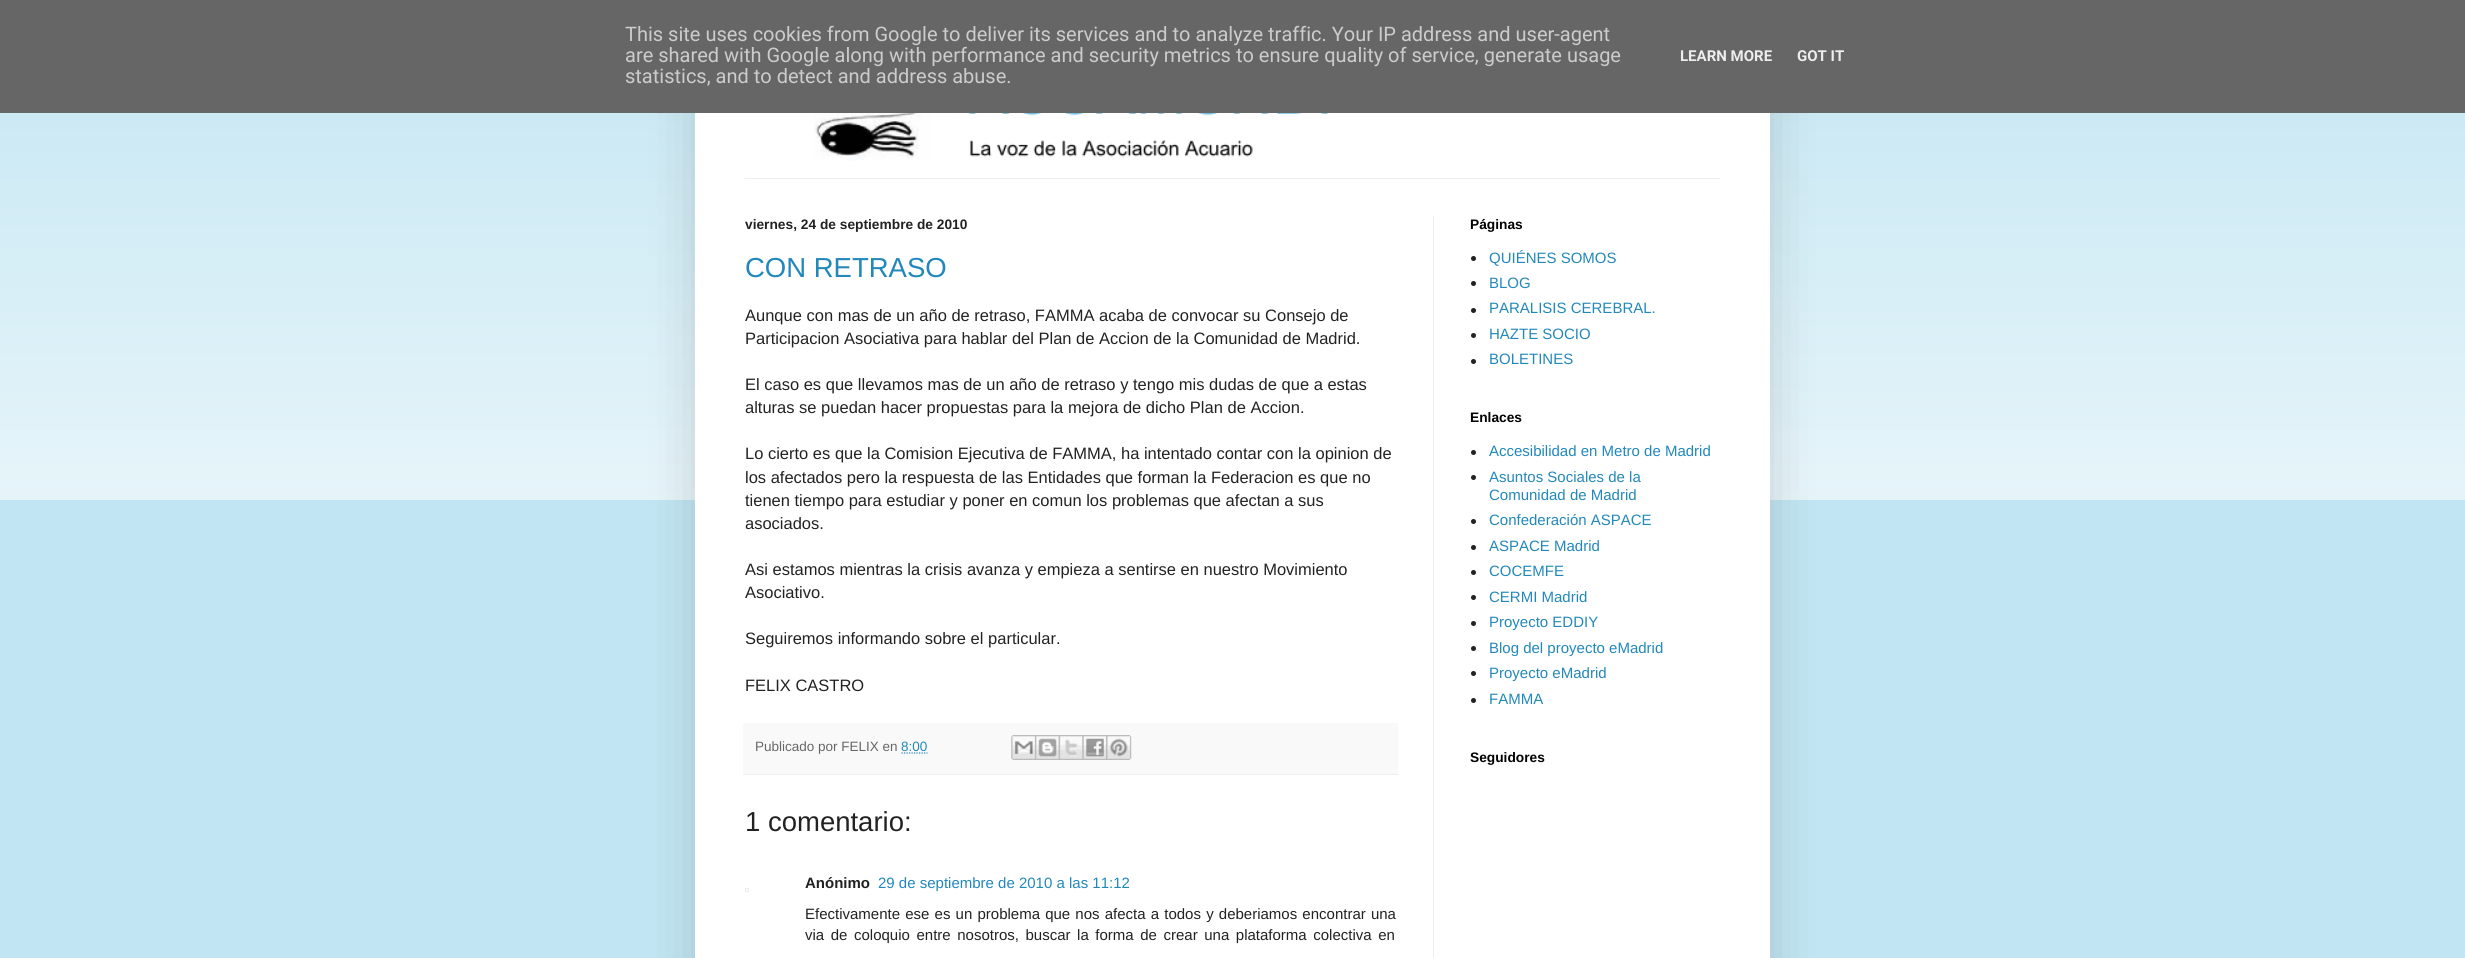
import math
import cairo

surface = cairo.ImageSurface(cairo.Format.RGB24, 2465, 958)
ctx = cairo.Context(surface)
options = cairo.FontOptions()
options.set_hint_metrics(cairo.HintMetrics.OFF)
options.set_hint_style(cairo.HintStyle.NONE)
ctx.set_font_options(options)
ctx.set_miter_limit(4)


def ink(r, g, b):
    ctx.set_source_rgb(r / 255, g / 255, b / 255)


def write(x, y, s, family, size, color, bold=False, italic=False):
    ctx.select_font_face(family, cairo.FontSlant.ITALIC if italic else cairo.FontSlant.NORMAL, cairo.FontWeight.BOLD if bold else cairo.FontWeight.NORMAL)
    ctx.set_font_size(size)
    ink(*color)
    ctx.move_to(x, y)
    ctx.show_text(s)


def write_spaced(x, y, s, letter, word):
    ctx.move_to(x, y)
    for ch in s:
        ctx.show_text(ch)
        ctx.rel_move_to(letter + word * (ch == ' '), 0)


def block(x, y, w, h, *color):
    ink(*color)
    ctx.rectangle(x, y, w, h)
    ctx.fill()


def round_path(x, y, w, h, r):
    ctx.new_sub_path()
    for i, (u, v) in enumerate([(x + w - r, y + h - r), (x + r, y + h - r), (x + r, y + r), (x + w - r, y + r)]):
        ctx.arc(u, v, r, i * math.pi / 2, (i + 1) * math.pi / 2)
    ctx.close_path()


def blur_box(x, y, w, h, r, blur, alpha):
    ctx.push_group_with_content(cairo.Content.ALPHA)
    ctx.set_operator(cairo.Operator.SOURCE)
    for i in range(15, -16, -2):
        e = blur * i / 6
        if min(w, h) + 2 * e > 0:
            ctx.set_source_rgba(0, 0, 0, alpha * math.erfc((i - 1) / 8.5) / 2)
            round_path(x - e, y - e, w + 2 * e, h + 2 * e, max(0, min(r + e + blur * .6, min(w, h) / 2 + e)))
            ctx.fill()
    ctx.mask(ctx.pop_group())


def paste(path, x, y, w, h):
    ctx.save()
    ctx.set_source_surface(cairo.ImageSurface.create_from_png(path), x, y)
    ctx.rectangle(x, y, w, h)
    ctx.fill()
    ctx.restore()


s1 = dict(family="Roboto", size=20, color=(204, 204, 204))
s2 = dict(family="Roboto", size=15, color=(238, 238, 238), bold=True)
s3 = dict(family="Liberation Sans", size=13.75, color=(34, 34, 34), bold=True)
s4 = dict(family="Liberation Sans", size=27.5, color=(34, 136, 187))
s5 = dict(family="Liberation Sans", size=16.5, color=(34, 34, 34))
s6 = dict(family="Liberation Sans", size=13.5, color=(102, 102, 102))
s7 = dict(family="Liberation Sans", size=13.5, color=(34, 136, 187))
s8 = dict(family="Liberation Sans", size=27.5, color=(34, 34, 34))
s9 = dict(family="Liberation Sans", size=15, color=(34, 34, 34), bold=True)
s10 = dict(family="Liberation Sans", size=15, color=(34, 136, 187))
s11 = dict(family="Liberation Sans", size=13.75, color=(0, 0, 0), bold=True)

ink(193, 229, 242)
ctx.paint()
paste("pic1.png", 0, 113, 2465, 387)
ink(0, 0, 0)
blur_box(695, 38, 1075, 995, 0, 25, 0.15)
block(0, 0, 2465, 113, 102, 102, 102)
write(625, 41, "This site uses cookies from Google to deliver its services and to analyze traffic. Your IP address and user-agent", **s1)
write(625, 62, "are shared with Google along with performance and security metrics to ensure quality of service, generate usage", **s1)
write(625, 83, "statistics, and to detect and address abuse.", **s1)
write(1680, 61, "LEARN MORE", **s2)
write(1797, 61, "GOT IT", **s2)
block(695, 113, 1075, 845, 255, 255, 255)
paste("pic2.png", 814, 113, 514, 48)
block(745, 178, 975, 1, 238, 238, 238)
block(1433, 216, 1, 742, 238, 238, 238)
write(745, 229, "viernes, 24 de septiembre de 2010", **s3)
write(745, 277, "CON RETRASO", **s4)
write(745, 321, "Aunque con mas de un año de retraso, FAMMA acaba de convocar su Consejo de", **s5)
write(745, 344, "Participacion Asociativa para hablar del Plan de Accion de la Comunidad de Madrid.", **s5)
write(745, 390, "El caso es que llevamos mas de un año de retraso y tengo mis dudas de que a estas", **s5)
write(745, 413, "alturas se puedan hacer propuestas para la mejora de dicho Plan de Accion.", **s5)
write(745, 459, "Lo cierto es que la Comision Ejecutiva de FAMMA, ha intentado contar con la opinion de", **s5)
write(745, 483, "los afectados pero la respuesta de las Entidades que forman la Federacion es que no", **s5)
write(745, 506, "tienen tiempo para estudiar y poner en comun los problemas que afectan a sus", **s5)
write(745, 529, "asociados.", **s5)
write(745, 575, "Asi estamos mientras la crisis avanza y empieza a sentirse en nuestro Movimiento", **s5)
write(745, 598, "Asociativo.", **s5)
write(745, 644, "Seguiremos informando sobre el particular.", **s5)
write(745, 691, "FELIX CASTRO", **s5)
block(743, 723, 655, 51, 249, 249, 249)
block(743, 774, 655, 1, 238, 238, 238)
write(755, 751, "Publicado por FELIX en", **s6)
write(901, 751, "8:00", **s7)
ctx.new_path()
ctx.move_to(901.5, 753)
ctx.line_to(927.5, 753)
ctx.set_line_width(1.2)
ctx.set_dash([1.25, 1.25])
ctx.stroke()
paste("pic3.png", 1011, 735, 24, 25)
paste("pic4.png", 1035, 735, 24, 25)
paste("pic5.png", 1058, 735, 25, 25)
paste("pic6.png", 1082, 735, 25, 25)
paste("pic7.png", 1106, 735, 26, 25)
write(745, 831, "1 comentario:", **s8)
ctx.rectangle(745.5, 888.5, 3, 3)
ink(238, 238, 238)
ctx.set_line_width(1)
ctx.set_dash([])
ctx.stroke()
write(805, 888, "Anónimo", **s9)
write(878, 888, "29 de septiembre de 2010 a las 11:12", **s10)
ink(34, 34, 34)
write_spaced(805, 919, "Efectivamente ese es un problema que nos afecta a todos y deberiamos encontrar una", 0, 1)
write_spaced(805, 940, "via de coloquio entre nosotros, buscar la forma de crear una plataforma colectiva en", 0, 2.4)
write(1470, 229, "Páginas", **s11)
ink(34, 34, 34)
ctx.new_path()
ctx.arc(1473.5, 258.5, 2.5, 0, 2 * math.pi)
ctx.fill()
write(1489, 263, "QUIÉNES SOMOS", **s10)
ink(34, 34, 34)
ctx.new_path()
ctx.arc(1473.5, 283.5, 2.5, 0, 2 * math.pi)
ctx.fill()
write(1489, 288, "BLOG", **s10)
ink(34, 34, 34)
ctx.new_path()
ctx.arc(1473.5, 310.5, 2.5, 0, 2 * math.pi)
ctx.fill()
write(1489, 313, "PARALISIS CEREBRAL.", **s10)
ink(34, 34, 34)
ctx.new_path()
ctx.arc(1473.5, 335.5, 2.5, 0, 2 * math.pi)
ctx.fill()
write(1489, 339, "HAZTE SOCIO", **s10)
ink(34, 34, 34)
ctx.new_path()
ctx.arc(1473.5, 361.5, 2.5, 0, 2 * math.pi)
ctx.fill()
write(1489, 364, "BOLETINES", **s10)
write(1470, 422, "Enlaces", **s11)
ink(34, 34, 34)
ctx.new_path()
ctx.arc(1473.5, 452.5, 2.5, 0, 2 * math.pi)
ctx.fill()
write(1489, 456, "Accesibilidad en Metro de Madrid", **s10)
ink(34, 34, 34)
ctx.new_path()
ctx.arc(1473.5, 477.5, 2.5, 0, 2 * math.pi)
ctx.fill()
write(1489, 482, "Asuntos Sociales de la", **s10)
write(1489, 500, "Comunidad de Madrid", **s10)
ink(34, 34, 34)
ctx.new_path()
ctx.arc(1473.5, 521.5, 2.5, 0, 2 * math.pi)
ctx.fill()
write(1489, 525, "Confederación ASPACE", **s10)
ink(34, 34, 34)
ctx.new_path()
ctx.arc(1473.5, 547.5, 2.5, 0, 2 * math.pi)
ctx.fill()
write(1489, 551, "ASPACE Madrid", **s10)
ink(34, 34, 34)
ctx.new_path()
ctx.arc(1473.5, 572.5, 2.5, 0, 2 * math.pi)
ctx.fill()
write(1489, 576, "COCEMFE", **s10)
ink(34, 34, 34)
ctx.new_path()
ctx.arc(1473.5, 597.5, 2.5, 0, 2 * math.pi)
ctx.fill()
write(1489, 602, "CERMI Madrid", **s10)
ink(34, 34, 34)
ctx.new_path()
ctx.arc(1473.5, 623.5, 2.5, 0, 2 * math.pi)
ctx.fill()
write(1489, 627, "Proyecto EDDIY", **s10)
ink(34, 34, 34)
ctx.new_path()
ctx.arc(1473.5, 648.5, 2.5, 0, 2 * math.pi)
ctx.fill()
write(1489, 653, "Blog del proyecto eMadrid", **s10)
ink(34, 34, 34)
ctx.new_path()
ctx.arc(1473.5, 673.5, 2.5, 0, 2 * math.pi)
ctx.fill()
write(1489, 678, "Proyecto eMadrid", **s10)
ink(34, 34, 34)
ctx.new_path()
ctx.arc(1473.5, 700.5, 2.5, 0, 2 * math.pi)
ctx.fill()
write(1489, 704, "FAMMA", **s10)
write(1470, 762, "Seguidores", **s11)
surface.write_to_png("screenshot.png")
